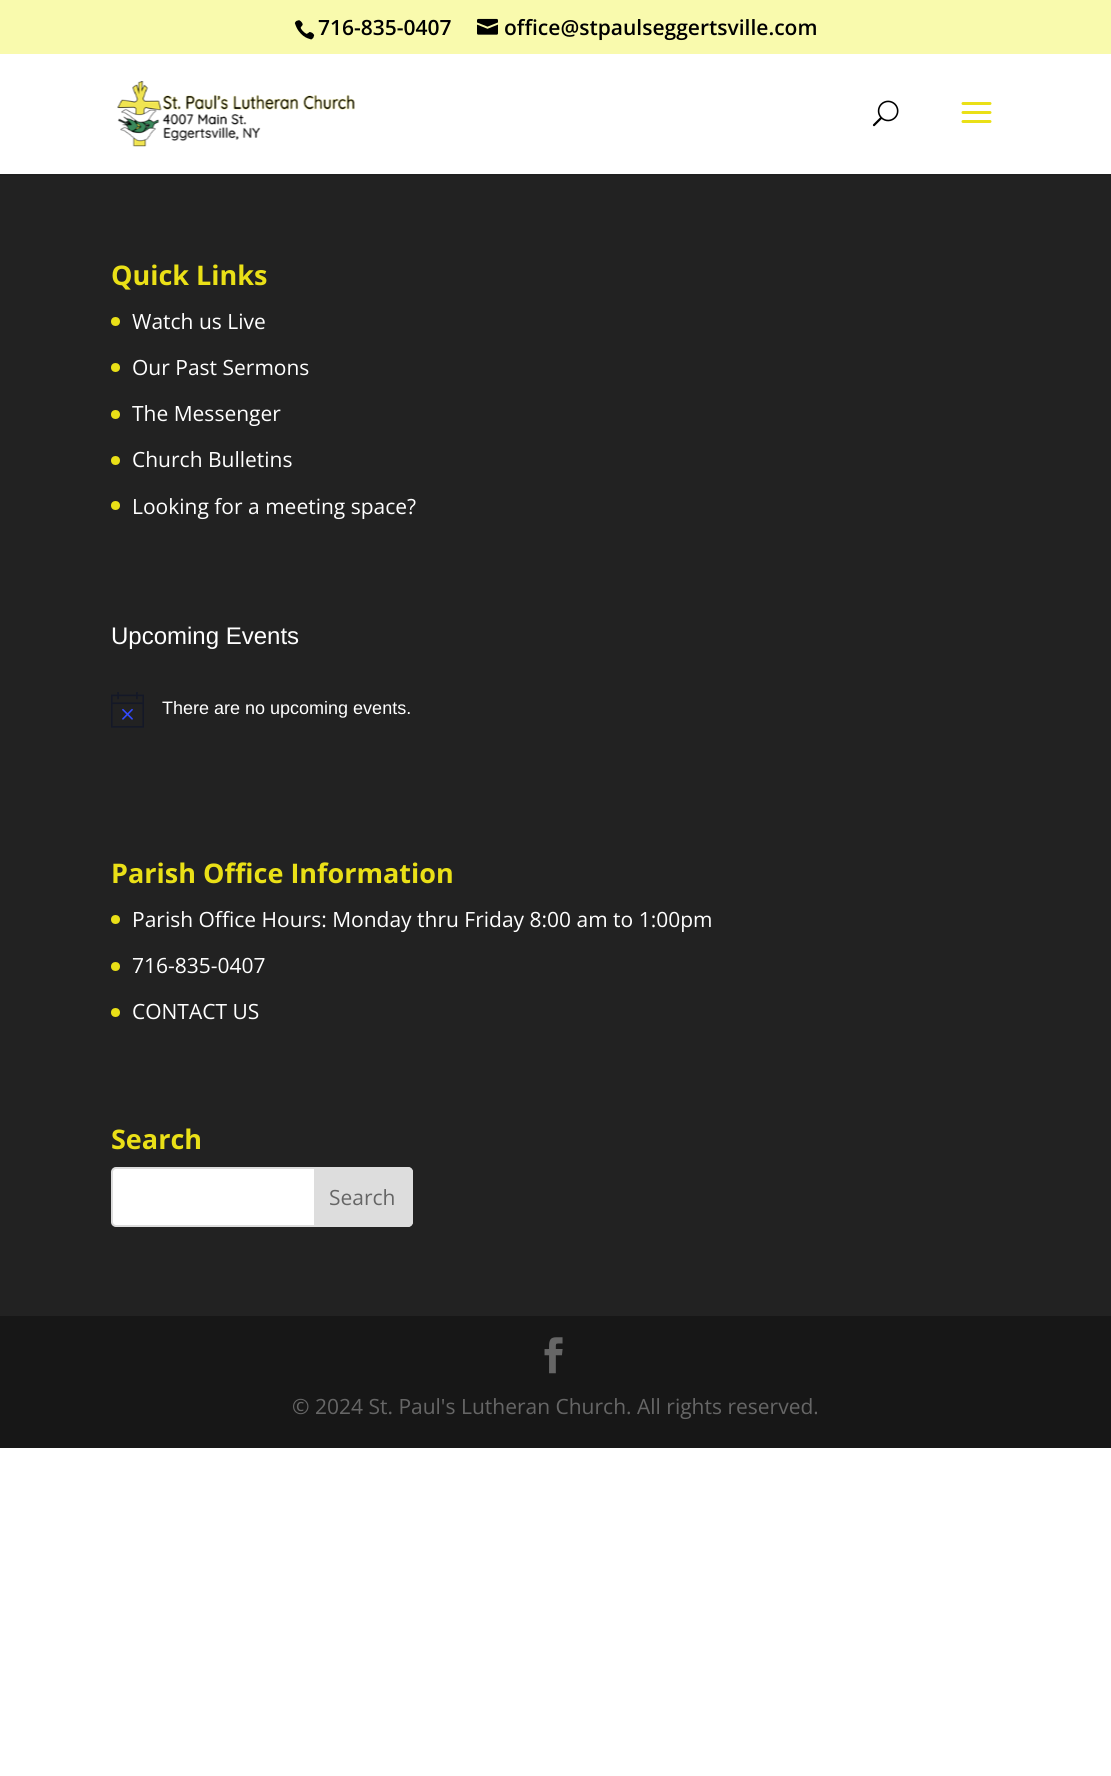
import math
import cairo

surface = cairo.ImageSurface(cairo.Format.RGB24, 1111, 1776)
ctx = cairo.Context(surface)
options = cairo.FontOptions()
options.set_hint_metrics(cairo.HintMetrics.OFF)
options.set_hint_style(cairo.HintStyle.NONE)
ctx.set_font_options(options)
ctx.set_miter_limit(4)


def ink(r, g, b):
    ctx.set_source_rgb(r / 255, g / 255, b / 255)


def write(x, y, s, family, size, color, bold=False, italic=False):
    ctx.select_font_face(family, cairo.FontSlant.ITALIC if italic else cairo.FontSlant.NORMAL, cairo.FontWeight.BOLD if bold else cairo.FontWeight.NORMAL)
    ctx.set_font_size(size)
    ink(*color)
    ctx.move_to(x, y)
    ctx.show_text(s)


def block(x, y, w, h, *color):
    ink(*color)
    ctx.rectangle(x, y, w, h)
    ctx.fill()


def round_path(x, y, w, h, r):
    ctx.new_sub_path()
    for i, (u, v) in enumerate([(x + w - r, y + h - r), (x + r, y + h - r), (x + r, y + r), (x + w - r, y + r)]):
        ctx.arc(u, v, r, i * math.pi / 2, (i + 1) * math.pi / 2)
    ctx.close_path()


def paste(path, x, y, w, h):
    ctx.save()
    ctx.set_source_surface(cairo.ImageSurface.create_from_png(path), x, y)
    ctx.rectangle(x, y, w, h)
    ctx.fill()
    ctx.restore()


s1 = dict(family="Open Sans SemiBold", size=21, color=(0, 0, 0))
s2 = dict(family="Open Sans", size=27, color=(234, 224, 23), bold=True)
s3 = dict(family="Open Sans", size=21, color=(255, 255, 255))
s4 = dict(family="Liberation Sans", size=24, color=(255, 255, 255))
s5 = dict(family="Liberation Sans", size=18, color=(255, 255, 255))
s6 = dict(family="Open Sans", size=21, color=(102, 102, 102))

ink(255, 255, 255)
ctx.paint()
block(0, 0, 1111, 54, 249, 250, 173)
paste("pic1.png", 294, 20, 21, 20)
write(318, 35, "716-835-0407", **s1)
paste("pic2.png", 477, 18, 21, 17)
write(504, 35, "office@stpaulseggertsville.com", **s1)
ink(31, 31, 31)
ctx.new_path()
ctx.move_to(0, 174)
ctx.line_to(0, 176)
ctx.line_to(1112, 176)
ctx.line_to(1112, 56)
ctx.line_to(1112, 174)
ctx.close_path()
ctx.fill()
paste("pic3.png", 117, 81, 238, 66)
paste("pic4.png", 872, 100, 27, 27)
paste("pic5.png", 961, 102, 31, 21)
block(0, 176, 1111, 1140, 34, 34, 34)
write(111, 285, "Quick Links", **s2)
ctx.new_path()
ctx.arc(115.5, 321.5, 4.5, 0, 2 * math.pi)
ctx.fill()
write(132, 329, "Watch us Live", **s3)
ink(234, 224, 23)
ctx.new_path()
ctx.arc(115.5, 367.5, 4.5, 0, 2 * math.pi)
ctx.fill()
write(132, 375, "Our Past Sermons", **s3)
ink(234, 224, 23)
ctx.new_path()
ctx.arc(115.5, 414.5, 4.5, 0, 2 * math.pi)
ctx.fill()
write(132, 421, "The Messenger", **s3)
ink(234, 224, 23)
ctx.new_path()
ctx.arc(115.5, 460.5, 4.5, 0, 2 * math.pi)
ctx.fill()
write(132, 467, "Church Bulletins", **s3)
ink(234, 224, 23)
ctx.new_path()
ctx.arc(115.5, 505.5, 4.5, 0, 2 * math.pi)
ctx.fill()
write(132, 514, "Looking for a meeting space?", **s3)
write(111, 644, "Upcoming Events", **s4)
paste("pic6.png", 111, 692, 33, 36)
write(162, 714, "There are no upcoming events.", **s5)
write(111, 883, "Parish Office Information", **s2)
ctx.new_path()
ctx.arc(115.5, 919.5, 4.5, 0, 2 * math.pi)
ctx.fill()
write(132, 927, "Parish Office Hours: Monday thru Friday 8:00 am to 1:00pm", **s3)
ink(234, 224, 23)
ctx.new_path()
ctx.arc(115.5, 966.5, 4.5, 0, 2 * math.pi)
ctx.fill()
write(132, 973, "716-835-0407", **s3)
ink(234, 224, 23)
ctx.new_path()
ctx.arc(115.5, 1012.5, 4.5, 0, 2 * math.pi)
ctx.fill()
write(132, 1019, "CONTACT US", **s3)
write(111, 1149, "Search", **s2)
ink(255, 255, 255)
round_path(112, 1168, 300, 58, 4)
ctx.fill_preserve()
ink(221, 221, 221)
ctx.stroke()
ctx.new_path()
ctx.move_to(315, 1168)
ctx.line_to(408, 1168)
ctx.curve_to(410, 1168, 412, 1170, 412, 1172)
ctx.line_to(412, 1222)
ctx.curve_to(412, 1224, 410, 1226, 408, 1226)
ctx.line_to(315, 1226)
ctx.close_path()
ctx.fill_preserve()
ctx.stroke()
write(329, 1205, "Search", **s6)
block(0, 1316, 1111, 132, 23, 23, 23)
paste("pic7.png", 544, 1337, 19, 37)
write(292, 1414, "© 2024 St. Paul's Lutheran Church. All rights reserved.", **s6)
surface.write_to_png("screenshot.png")
